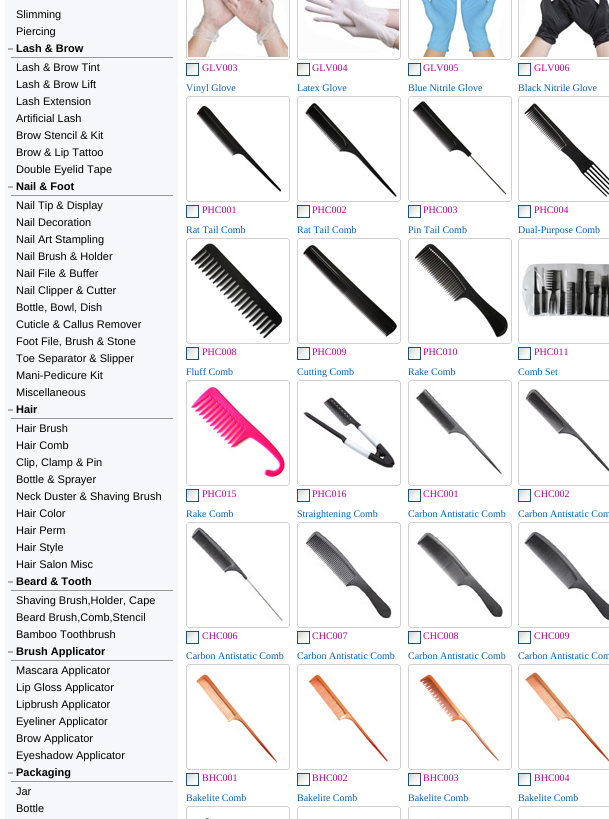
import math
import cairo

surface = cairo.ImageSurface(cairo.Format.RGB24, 609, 819)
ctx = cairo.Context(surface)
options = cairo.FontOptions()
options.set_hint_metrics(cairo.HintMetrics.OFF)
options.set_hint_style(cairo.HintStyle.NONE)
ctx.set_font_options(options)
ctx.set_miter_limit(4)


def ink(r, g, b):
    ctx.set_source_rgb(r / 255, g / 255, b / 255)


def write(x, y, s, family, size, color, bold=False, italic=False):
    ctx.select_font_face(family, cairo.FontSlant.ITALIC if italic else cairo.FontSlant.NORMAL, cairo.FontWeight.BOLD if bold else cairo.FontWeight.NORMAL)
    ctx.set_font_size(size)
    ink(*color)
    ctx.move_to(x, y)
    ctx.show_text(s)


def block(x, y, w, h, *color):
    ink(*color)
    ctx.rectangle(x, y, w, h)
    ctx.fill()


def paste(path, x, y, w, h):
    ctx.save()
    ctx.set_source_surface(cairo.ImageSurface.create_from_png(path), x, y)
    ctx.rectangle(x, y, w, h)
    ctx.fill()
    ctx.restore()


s1 = dict(family="Liberation Sans", size=11, color=(0, 0, 0))
s2 = dict(family="Liberation Sans", size=11, color=(0, 0, 0), bold=True)
s3 = dict(family="Liberation Serif", size=10, color=(181, 0, 152))
s4 = dict(family="Liberation Serif", size=10, color=(0, 95, 181))

ink(255, 255, 255)
ctx.paint()
block(5, 0, 173, 819, 245, 247, 250)
write(16, 18, "Slimming", **s1)
write(16, 35, "Piercing", **s1)
block(8, 48, 5, 2, 178, 178, 178)
write(16, 52, "Lash & Brow", **s2)
block(11, 57, 162, 1, 153, 153, 153)
write(16, 71, "Lash & Brow Tint", **s1)
write(16, 88, "Lash & Brow Lift", **s1)
write(16, 105, "Lash Extension", **s1)
write(16, 122, "Artificial Lash", **s1)
write(16, 139, "Brow Stencil & Kit", **s1)
write(16, 156, "Brow & Lip Tattoo", **s1)
write(16, 173, "Double Eyelid Tape", **s1)
block(8, 186, 5, 2, 178, 178, 178)
write(16, 190, "Nail & Foot", **s2)
block(11, 195, 162, 1, 153, 153, 153)
write(16, 209, "Nail Tip & Display", **s1)
write(16, 226, "Nail Decoration", **s1)
write(16, 243, "Nail Art Stampling", **s1)
write(16, 260, "Nail Brush & Holder", **s1)
write(16, 277, "Nail File & Buffer", **s1)
write(16, 294, "Nail Clipper & Cutter", **s1)
write(16, 311, "Bottle, Bowl, Dish", **s1)
write(16, 328, "Cuticle & Callus Remover", **s1)
write(16, 345, "Foot File, Brush & Stone", **s1)
write(16, 362, "Toe Separator & Slipper", **s1)
write(16, 379, "Mani-Pedicure Kit", **s1)
write(16, 396, "Miscellaneous", **s1)
block(8, 409, 5, 2, 178, 178, 178)
write(16, 413, "Hair", **s2)
block(11, 418, 162, 1, 153, 153, 153)
write(16, 432, "Hair Brush", **s1)
write(16, 449, "Hair Comb", **s1)
write(16, 466, "Clip, Clamp & Pin", **s1)
write(16, 483, "Bottle & Sprayer", **s1)
write(16, 500, "Neck Duster & Shaving Brush", **s1)
write(16, 517, "Hair Color", **s1)
write(16, 534, "Hair Perm", **s1)
write(16, 551, "Hair Style", **s1)
write(16, 568, "Hair Salon Misc", **s1)
block(8, 581, 5, 2, 178, 178, 178)
write(16, 585, "Beard & Tooth", **s2)
block(11, 590, 162, 1, 153, 153, 153)
write(16, 604, "Shaving Brush,Holder, Cape", **s1)
write(16, 621, "Beard Brush,Comb,Stencil", **s1)
write(16, 638, "Bamboo Toothbrush", **s1)
block(8, 651, 5, 2, 178, 178, 178)
write(16, 655, "Brush Applicator", **s2)
block(11, 660, 162, 1, 153, 153, 153)
write(16, 674, "Mascara Applicator", **s1)
write(16, 691, "Lip Gloss Applicator", **s1)
write(16, 708, "Lipbrush Applicator", **s1)
write(16, 725, "Eyeliner Applicator", **s1)
write(16, 742, "Brow Applicator", **s1)
write(16, 759, "Eyeshadow Applicator", **s1)
block(8, 772, 5, 2, 178, 178, 178)
write(16, 776, "Packaging", **s2)
block(11, 781, 162, 1, 153, 153, 153)
write(16, 795, "Jar", **s1)
write(16, 812, "Bottle", **s1)
block(186, 0, 1, 57, 209, 209, 209)
paste("pic1.png", 188, 0, 100, 57)
block(289, 0, 1, 57, 209, 209, 209)
paste("pic2.png", 186, 57, 104, 3)
paste("pic3.png", 186, 63, 13, 13)
write(202, 71, "GLV003", **s3)
write(186, 91, "Vinyl Glove", **s4)
block(297, 0, 1, 57, 209, 209, 209)
paste("pic4.png", 299, 0, 100, 53)
block(400, 0, 1, 57, 209, 209, 209)
paste("pic2.png", 297, 57, 104, 3)
paste("pic3.png", 297, 63, 13, 13)
write(312, 71, "GLV004", **s3)
write(297, 91, "Latex Glove", **s4)
block(408, 0, 1, 57, 209, 209, 209)
paste("pic5.png", 418, 0, 88, 57)
block(511, 0, 1, 57, 209, 209, 209)
paste("pic2.png", 408, 57, 104, 3)
paste("pic3.png", 408, 63, 13, 13)
write(423, 71, "GLV005", **s3)
write(408, 91, "Blue Nitrile Glove", **s4)
block(518, 0, 1, 57, 209, 209, 209)
paste("pic6.png", 520, 0, 89, 57)
paste("pic7.png", 518, 57, 91, 3)
paste("pic3.png", 518, 63, 13, 13)
write(534, 71, "GLV006", **s3)
write(518, 91, "Black Nitrile Glove", **s4)
paste("pic8.png", 186, 96, 104, 3)
block(186, 99, 1, 100, 209, 209, 209)
paste("pic9.png", 196, 105, 86, 87)
block(289, 99, 1, 100, 209, 209, 209)
paste("pic2.png", 186, 199, 104, 3)
paste("pic3.png", 186, 205, 13, 13)
write(202, 213, "PHC001", **s3)
write(186, 233, "Rat Tail Comb", **s4)
paste("pic8.png", 297, 96, 104, 3)
block(297, 99, 1, 100, 209, 209, 209)
paste("pic10.png", 303, 101, 94, 98)
block(400, 99, 1, 100, 209, 209, 209)
paste("pic2.png", 297, 199, 104, 3)
paste("pic3.png", 297, 205, 13, 13)
write(312, 213, "PHC002", **s3)
write(297, 233, "Rat Tail Comb", **s4)
paste("pic8.png", 408, 96, 104, 3)
block(408, 99, 1, 100, 209, 209, 209)
paste("pic11.png", 412, 99, 95, 96)
block(511, 99, 1, 100, 209, 209, 209)
paste("pic2.png", 408, 199, 104, 3)
paste("pic3.png", 408, 205, 13, 13)
write(423, 213, "PHC003", **s3)
write(408, 233, "Pin Tail Comb", **s4)
paste("pic12.png", 518, 96, 91, 3)
block(518, 99, 1, 100, 209, 209, 209)
paste("pic13.png", 524, 103, 85, 94)
paste("pic7.png", 518, 199, 91, 3)
paste("pic3.png", 518, 205, 13, 13)
write(534, 213, "PHC004", **s3)
write(518, 233, "Dual-Purpose Comb", **s4)
paste("pic8.png", 186, 238, 104, 3)
block(186, 241, 1, 100, 209, 209, 209)
paste("pic14.png", 190, 243, 93, 96)
block(289, 241, 1, 100, 209, 209, 209)
paste("pic2.png", 186, 341, 104, 3)
paste("pic3.png", 186, 347, 13, 13)
write(202, 355, "PHC008", **s3)
write(186, 375, "Fluff Comb", **s4)
paste("pic8.png", 297, 238, 104, 3)
block(297, 241, 1, 100, 209, 209, 209)
paste("pic15.png", 303, 244, 94, 93)
block(400, 241, 1, 100, 209, 209, 209)
paste("pic2.png", 297, 341, 104, 3)
paste("pic3.png", 297, 347, 13, 13)
write(312, 355, "PHC009", **s3)
write(297, 375, "Cutting Comb", **s4)
paste("pic8.png", 408, 238, 104, 3)
block(408, 241, 1, 100, 209, 209, 209)
paste("pic16.png", 411, 243, 97, 95)
block(511, 241, 1, 100, 209, 209, 209)
paste("pic2.png", 408, 341, 104, 3)
paste("pic3.png", 408, 347, 13, 13)
write(423, 355, "PHC010", **s3)
write(408, 375, "Rake Comb", **s4)
paste("pic12.png", 518, 238, 91, 3)
block(518, 241, 1, 100, 209, 209, 209)
paste("pic17.png", 522, 263, 87, 54)
paste("pic7.png", 518, 341, 91, 3)
paste("pic3.png", 518, 347, 13, 13)
write(534, 355, "PHC011", **s3)
write(518, 375, "Comb Set", **s4)
paste("pic8.png", 186, 380, 104, 3)
block(186, 383, 1, 100, 209, 209, 209)
paste("pic18.png", 188, 383, 98, 96)
block(289, 383, 1, 100, 209, 209, 209)
paste("pic2.png", 186, 483, 104, 3)
paste("pic3.png", 186, 489, 13, 13)
write(202, 497, "PHC015", **s3)
write(186, 517, "Rake Comb", **s4)
paste("pic8.png", 297, 380, 104, 3)
block(297, 383, 1, 100, 209, 209, 209)
paste("pic19.png", 301, 397, 94, 73)
block(400, 383, 1, 100, 209, 209, 209)
paste("pic2.png", 297, 483, 104, 3)
paste("pic3.png", 297, 489, 13, 13)
write(312, 497, "PHC016", **s3)
write(297, 517, "Straightening Comb", **s4)
paste("pic8.png", 408, 380, 104, 3)
block(408, 383, 1, 100, 209, 209, 209)
paste("pic20.png", 411, 383, 94, 95)
block(511, 383, 1, 100, 209, 209, 209)
paste("pic2.png", 408, 483, 104, 3)
paste("pic3.png", 408, 489, 13, 13)
write(423, 497, "CHC001", **s3)
write(408, 517, "Carbon Antistatic Comb", **s4)
paste("pic12.png", 518, 380, 91, 3)
block(518, 383, 1, 100, 209, 209, 209)
paste("pic21.png", 523, 389, 86, 83)
paste("pic7.png", 518, 483, 91, 3)
paste("pic3.png", 518, 489, 13, 13)
write(534, 497, "CHC002", **s3)
write(518, 517, "Carbon Antistatic Com", **s4)
paste("pic8.png", 186, 522, 104, 3)
block(186, 525, 1, 100, 209, 209, 209)
paste("pic22.png", 189, 525, 95, 96)
block(289, 525, 1, 100, 209, 209, 209)
paste("pic2.png", 186, 625, 104, 3)
paste("pic3.png", 186, 631, 13, 13)
write(202, 639, "CHC006", **s3)
write(186, 659, "Carbon Antistatic Comb", **s4)
paste("pic8.png", 297, 522, 104, 3)
block(297, 525, 1, 100, 209, 209, 209)
paste("pic23.png", 299, 530, 95, 91)
block(400, 525, 1, 100, 209, 209, 209)
paste("pic2.png", 297, 625, 104, 3)
paste("pic3.png", 297, 631, 13, 13)
write(312, 639, "CHC007", **s3)
write(297, 659, "Carbon Antistatic Comb", **s4)
paste("pic8.png", 408, 522, 104, 3)
block(408, 525, 1, 100, 209, 209, 209)
paste("pic24.png", 411, 532, 95, 89)
block(511, 525, 1, 100, 209, 209, 209)
paste("pic2.png", 408, 625, 104, 3)
paste("pic3.png", 408, 631, 13, 13)
write(423, 639, "CHC008", **s3)
write(408, 659, "Carbon Antistatic Comb", **s4)
paste("pic12.png", 518, 522, 91, 3)
block(518, 525, 1, 100, 209, 209, 209)
paste("pic25.png", 523, 531, 86, 90)
paste("pic7.png", 518, 625, 91, 3)
paste("pic3.png", 518, 631, 13, 13)
write(534, 639, "CHC009", **s3)
write(518, 659, "Carbon Antistatic Com", **s4)
paste("pic8.png", 186, 664, 104, 3)
block(186, 667, 1, 100, 209, 209, 209)
paste("pic26.png", 196, 667, 88, 96)
block(289, 667, 1, 100, 209, 209, 209)
paste("pic2.png", 186, 767, 104, 3)
paste("pic3.png", 186, 773, 13, 13)
write(202, 781, "BHC001", **s3)
write(186, 801, "Bakelite Comb", **s4)
paste("pic8.png", 297, 664, 104, 3)
block(297, 667, 1, 100, 209, 209, 209)
paste("pic27.png", 307, 668, 87, 95)
block(400, 667, 1, 100, 209, 209, 209)
paste("pic2.png", 297, 767, 104, 3)
paste("pic3.png", 297, 773, 13, 13)
write(312, 781, "BHC002", **s3)
write(297, 801, "Bakelite Comb", **s4)
paste("pic8.png", 408, 664, 104, 3)
block(408, 667, 1, 100, 209, 209, 209)
paste("pic28.png", 419, 674, 81, 88)
block(511, 667, 1, 100, 209, 209, 209)
paste("pic2.png", 408, 767, 104, 3)
paste("pic3.png", 408, 773, 13, 13)
write(423, 781, "BHC003", **s3)
write(408, 801, "Bakelite Comb", **s4)
paste("pic12.png", 518, 664, 91, 3)
block(518, 667, 1, 100, 209, 209, 209)
paste("pic29.png", 520, 667, 89, 96)
paste("pic7.png", 518, 767, 91, 3)
paste("pic3.png", 518, 773, 13, 13)
write(534, 781, "BHC004", **s3)
write(518, 801, "Bakelite Comb", **s4)
paste("pic8.png", 186, 806, 104, 3)
block(186, 809, 1, 10, 209, 209, 209)
paste("pic30.png", 202, 817, 15, 2)
block(289, 809, 1, 10, 209, 209, 209)
paste("pic8.png", 297, 806, 104, 3)
block(297, 809, 1, 10, 209, 209, 209)
block(400, 809, 1, 10, 209, 209, 209)
paste("pic8.png", 408, 806, 104, 3)
block(408, 809, 1, 10, 209, 209, 209)
paste("pic31.png", 431, 817, 10, 2)
block(511, 809, 1, 10, 209, 209, 209)
paste("pic12.png", 518, 806, 91, 3)
block(518, 809, 1, 10, 209, 209, 209)
paste("pic32.png", 537, 817, 6, 2)
surface.write_to_png("screenshot.png")
